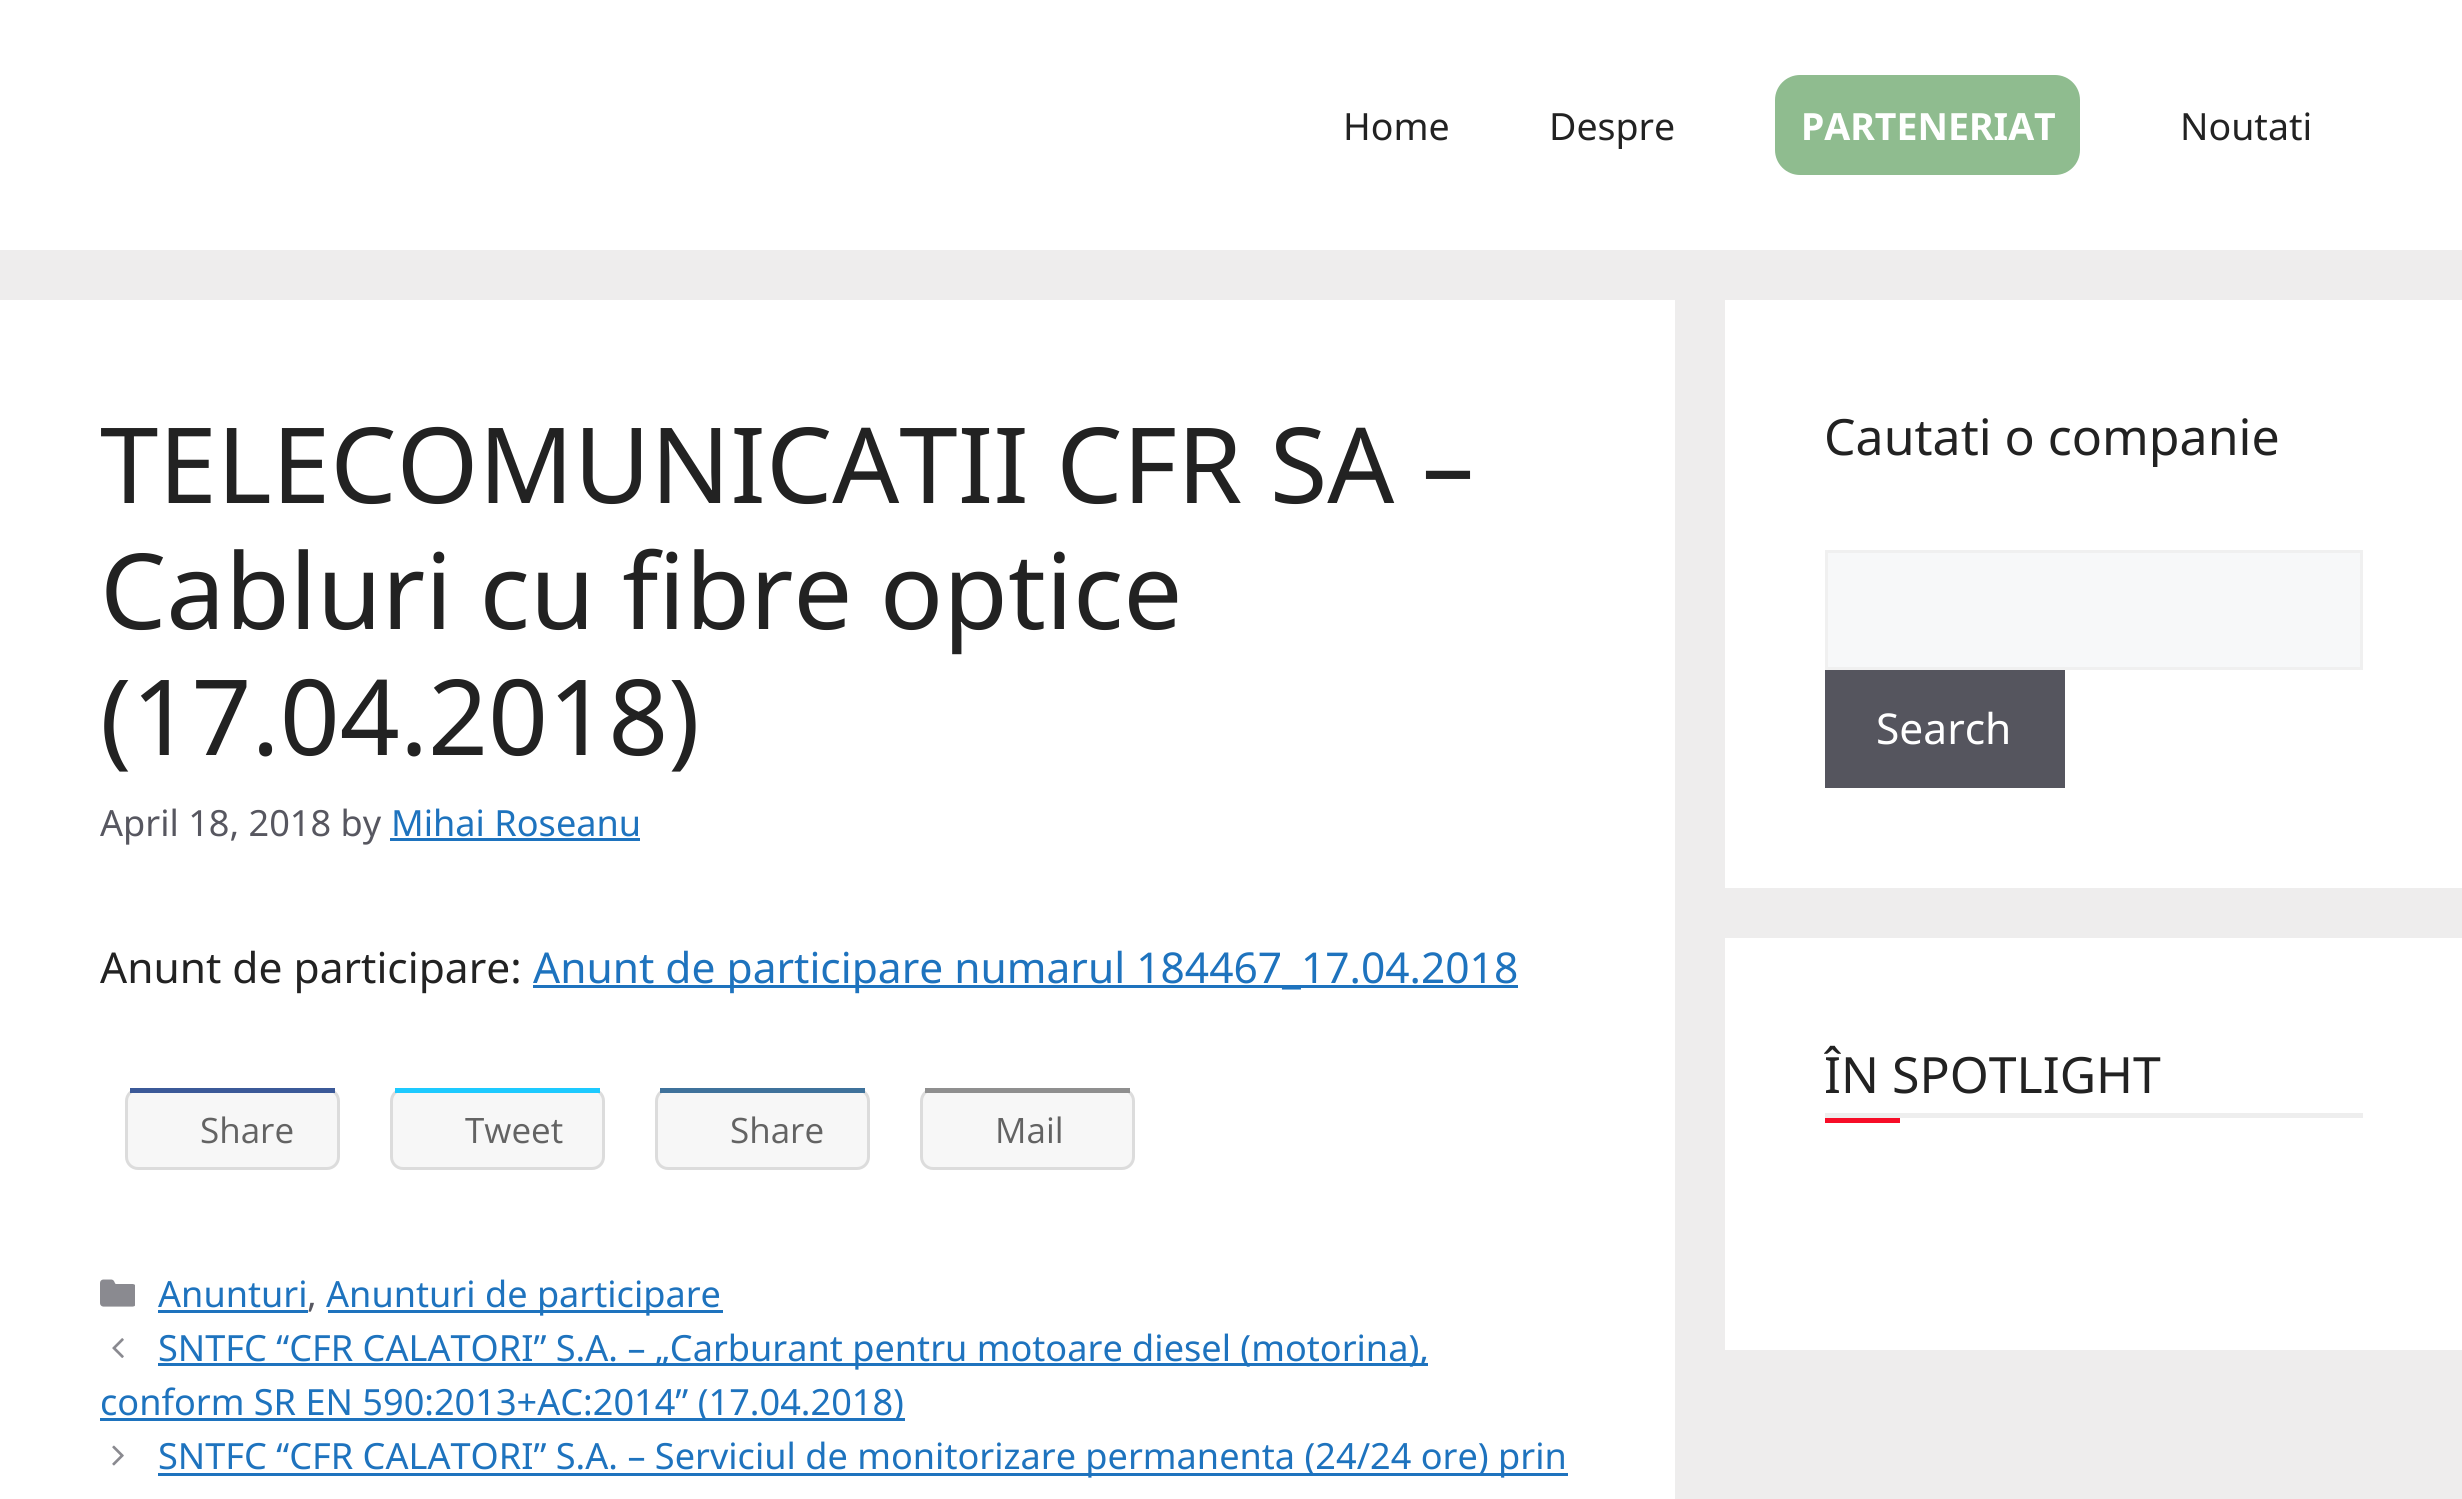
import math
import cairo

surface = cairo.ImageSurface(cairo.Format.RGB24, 2462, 1499)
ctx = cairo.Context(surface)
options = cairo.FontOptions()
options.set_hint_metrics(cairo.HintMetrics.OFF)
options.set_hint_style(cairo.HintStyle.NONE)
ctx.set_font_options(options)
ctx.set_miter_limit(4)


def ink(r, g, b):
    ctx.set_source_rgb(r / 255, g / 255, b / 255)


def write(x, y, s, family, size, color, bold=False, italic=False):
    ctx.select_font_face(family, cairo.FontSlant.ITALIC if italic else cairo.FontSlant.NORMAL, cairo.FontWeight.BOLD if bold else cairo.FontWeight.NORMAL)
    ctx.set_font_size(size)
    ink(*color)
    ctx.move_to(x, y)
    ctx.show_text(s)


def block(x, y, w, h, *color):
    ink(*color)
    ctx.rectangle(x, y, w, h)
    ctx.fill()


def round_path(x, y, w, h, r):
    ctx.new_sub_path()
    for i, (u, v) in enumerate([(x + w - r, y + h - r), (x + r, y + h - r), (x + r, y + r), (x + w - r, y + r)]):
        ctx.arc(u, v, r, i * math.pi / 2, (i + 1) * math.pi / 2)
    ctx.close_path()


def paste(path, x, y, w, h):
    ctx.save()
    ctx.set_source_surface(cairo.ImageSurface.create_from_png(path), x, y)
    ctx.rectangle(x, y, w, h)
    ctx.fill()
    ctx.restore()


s1 = dict(family="Noto Sans", size=37.5, color=(34, 34, 34))
s2 = dict(family="Noto Sans", size=37.5, color=(255, 255, 255), bold=True)
s3 = dict(family="Noto Sans", size=105, color=(34, 34, 34))
s4 = dict(family="Noto Sans", size=36.1, color=(87, 87, 96))
s5 = dict(family="Noto Sans", size=36.1, color=(30, 115, 190))
s6 = dict(family="Noto Sans", size=42.5, color=(34, 34, 34))
s7 = dict(family="Noto Sans", size=42.5, color=(30, 115, 190))
s8 = dict(family="Open Sans", size=35, color=(99, 99, 99))
s9 = dict(family="Noto Sans", size=50, color=(34, 34, 34))
s10 = dict(family="Noto Sans", size=42.5, color=(255, 255, 255))

ink(238, 237, 237)
ctx.paint()
block(0, 0, 2462, 250, 255, 255, 255)
write(1343, 140, "Home", **s1)
write(1549, 140, "Despre", **s1)
ink(143, 188, 143)
round_path(1775, 75, 305, 100, 25)
ctx.fill()
write(1801, 140, "PARTENERIAT", **s2)
write(2180, 140, "Noutati", **s1)
block(0, 300, 1675, 1199, 255, 255, 255)
write(100, 503, "TELECOMUNICATII CFR SA –", **s3)
write(100, 629, "Cabluri cu fibre optice", **s3)
write(100, 755, "(17.04.2018)", **s3)
write(100, 836, "April 18, 2018 by", **s4)
write(391, 836, "Mihai Roseanu", **s5)
block(390, 838, 250, 3, 30, 115, 190)
write(100, 983, "Anunt de participare:", **s6)
block(533, 985, 985, 3, 30, 115, 190)
write(533, 983, "Anunt de participare numarul 184467_17.04.2018", **s7)
ink(247, 247, 247)
round_path(126.5, 1089.5, 212, 79, 11.5)
ctx.fill_preserve()
ink(220, 220, 220)
ctx.set_line_width(3)
ctx.stroke()
block(130, 1088, 205, 5, 59, 89, 152)
write(200, 1143, "Share", **s8)
ink(247, 247, 247)
round_path(391.5, 1089.5, 212, 79, 11.5)
ctx.fill_preserve()
ink(220, 220, 220)
ctx.stroke()
block(395, 1088, 205, 5, 29, 202, 255)
write(465, 1143, "Tweet", **s8)
ink(247, 247, 247)
round_path(656.5, 1089.5, 212, 79, 11.5)
ctx.fill_preserve()
ink(220, 220, 220)
ctx.stroke()
block(660, 1088, 205, 5, 63, 114, 155)
write(730, 1143, "Share", **s8)
ink(247, 247, 247)
round_path(921.5, 1089.5, 212, 79, 11.5)
ctx.fill_preserve()
ink(220, 220, 220)
ctx.stroke()
block(925, 1088, 205, 5, 143, 143, 143)
write(995, 1143, "Mail", **s8)
paste("pic1.png", 100, 1279, 35, 28)
write(158, 1307, "Anunturi", **s5)
block(158, 1310, 150, 3, 30, 115, 190)
write(307, 1307, ",", **s4)
block(328, 1310, 395, 3, 30, 115, 190)
write(326, 1307, "Anunturi de participare", **s5)
paste("pic2.png", 112, 1338, 12, 20)
block(158, 1363, 1270, 3, 30, 115, 190)
write(158, 1361, "SNTFC “CFR CALATORI” S.A. – „Carburant pentru motoare diesel (motorina),", **s5)
block(100, 1418, 805, 3, 30, 115, 190)
write(100, 1415, "conform SR EN 590:2013+AC:2014” (17.04.2018)", **s5)
paste("pic3.png", 112, 1445, 12, 21)
block(158, 1473, 1410, 3, 30, 115, 190)
write(158, 1469, "SNTFC “CFR CALATORI” S.A. – Serviciul de monitorizare permanenta (24/24 ore) prin", **s5)
block(1725, 300, 737, 588, 255, 255, 255)
write(1824, 455, "Cautati o companie", **s9)
ink(247, 248, 249)
ctx.rectangle(1826.5, 551.5, 535, 117)
ctx.fill_preserve()
ink(240, 240, 240)
ctx.stroke()
block(1825, 670, 240, 118, 85, 85, 94)
write(1876, 744, "Search", **s10)
block(1725, 938, 737, 412, 255, 255, 255)
block(1825, 1113, 538, 5, 238, 238, 238)
write(1824, 1093, "ÎN SPOTLIGHT", **s9)
block(1825, 1118, 75, 5, 247, 13, 40)
surface.write_to_png("screenshot.png")
